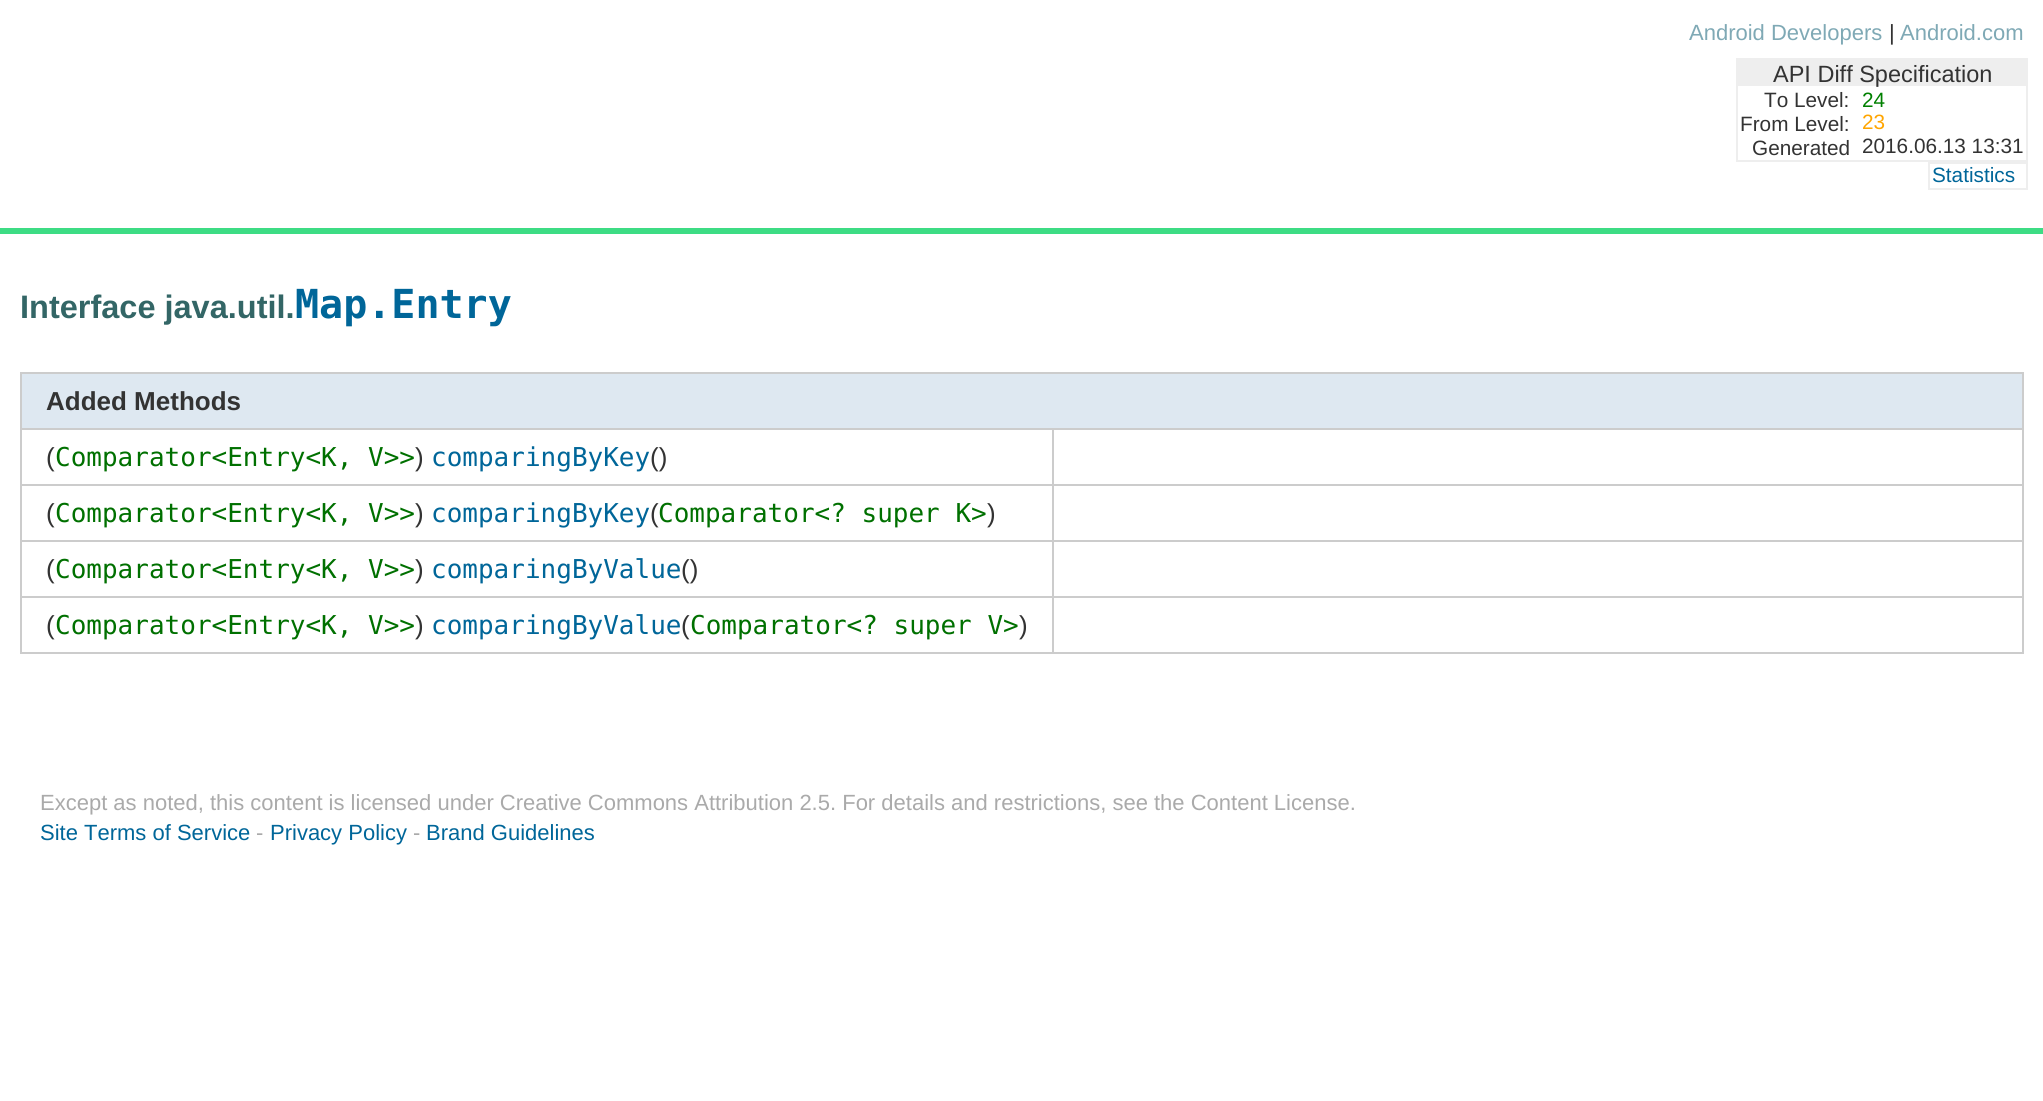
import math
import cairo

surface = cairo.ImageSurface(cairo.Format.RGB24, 2043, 1101)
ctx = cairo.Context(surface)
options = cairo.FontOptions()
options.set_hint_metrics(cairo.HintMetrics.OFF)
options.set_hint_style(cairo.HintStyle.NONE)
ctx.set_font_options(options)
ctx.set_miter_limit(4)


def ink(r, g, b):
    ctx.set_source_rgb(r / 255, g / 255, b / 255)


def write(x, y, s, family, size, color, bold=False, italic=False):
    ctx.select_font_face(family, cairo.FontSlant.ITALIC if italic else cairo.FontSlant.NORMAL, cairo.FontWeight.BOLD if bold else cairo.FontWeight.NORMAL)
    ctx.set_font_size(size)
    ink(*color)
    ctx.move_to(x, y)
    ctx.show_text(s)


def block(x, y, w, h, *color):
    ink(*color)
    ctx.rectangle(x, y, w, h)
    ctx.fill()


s1 = dict(family="Liberation Sans", size=22, color=(127, 169, 181))
s2 = dict(family="Liberation Sans", size=22, color=(51, 51, 51))
s3 = dict(family="Liberation Sans", size=23.5, color=(51, 51, 51))
s4 = dict(family="Liberation Sans", size=20.75, color=(51, 51, 51))
s5 = dict(family="Liberation Sans", size=20.75, color=(0, 128, 0))
s6 = dict(family="Liberation Sans", size=20.75, color=(255, 165, 0))
s7 = dict(family="Liberation Sans", size=20.75, color=(0, 102, 153))
s8 = dict(family="Liberation Sans", size=32.5, color=(51, 102, 102), bold=True)
s9 = dict(family="DejaVu Sans Mono", size=40, color=(0, 102, 153), bold=True)
s10 = dict(family="Liberation Sans", size=26, color=(51, 51, 51), bold=True)
s11 = dict(family="Liberation Sans", size=26, color=(51, 51, 51))
s12 = dict(family="DejaVu Sans Mono", size=26, color=(0, 112, 0))
s13 = dict(family="DejaVu Sans Mono", size=26, color=(0, 102, 153))
s14 = dict(family="Liberation Sans", size=22, color=(170, 170, 170))
s15 = dict(family="Liberation Sans", size=22, color=(0, 102, 153))

ink(255, 255, 255)
ctx.paint()
block(0, 228, 2043, 6, 61, 220, 132)
write(1689, 40, "Android Developers", **s1)
write(1889, 40, "|", **s2)
write(1900, 40, "Android.com", **s1)
ctx.rectangle(1737, 59, 290, 102)
ink(238, 238, 238)
ctx.stroke()
block(1738, 60, 288, 26, 238, 238, 238)
write(1773, 82, "API Diff Specification", **s3)
write(1764, 107, "To Level:", **s4)
write(1862, 107, "24", **s5)
write(1740, 131, "From Level:", **s4)
write(1862, 129, "23", **s6)
write(1752, 155, "Generated", **s4)
write(1862, 153, "2016.06.13 13:31", **s4)
ctx.rectangle(1929, 163, 98, 26)
ink(238, 238, 238)
ctx.stroke()
write(1932, 182, "Statistics", **s7)
write(20, 318, "Interface java.util.", **s8)
write(295, 318, "Map.Entry", **s9)
block(22, 374, 2000, 54, 222, 232, 241)
block(20, 372, 2004, 2, 204, 204, 204)
block(1052, 428, 972, 2, 204, 204, 204)
block(1052, 484, 972, 2, 204, 204, 204)
block(1052, 540, 972, 2, 204, 204, 204)
block(1052, 596, 972, 2, 204, 204, 204)
block(2022, 596, 2, 58, 204, 204, 204)
block(2022, 540, 2, 58, 204, 204, 204)
block(2022, 484, 2, 58, 204, 204, 204)
block(2022, 428, 2, 58, 204, 204, 204)
block(2022, 372, 2, 58, 204, 204, 204)
block(1052, 652, 972, 2, 204, 204, 204)
block(1052, 596, 2, 58, 204, 204, 204)
block(20, 596, 1034, 2, 204, 204, 204)
block(1052, 540, 2, 58, 204, 204, 204)
block(20, 540, 1034, 2, 204, 204, 204)
block(1052, 484, 2, 58, 204, 204, 204)
block(20, 484, 1034, 2, 204, 204, 204)
block(1052, 428, 2, 58, 204, 204, 204)
block(20, 428, 1034, 2, 204, 204, 204)
block(20, 652, 1034, 2, 204, 204, 204)
block(20, 596, 2, 58, 204, 204, 204)
block(20, 540, 2, 58, 204, 204, 204)
block(20, 484, 2, 58, 204, 204, 204)
block(20, 428, 2, 58, 204, 204, 204)
block(20, 372, 2, 58, 204, 204, 204)
write(46, 410, "Added Methods", **s10)
write(46, 466, "(", **s11)
write(55, 466, "Comparator<Entry<K, V>>", **s12)
write(415, 466, ")", **s11)
write(431, 466, "comparingByKey", **s13)
write(650, 466, "()", **s11)
write(46, 522, "(", **s11)
write(55, 522, "Comparator<Entry<K, V>>", **s12)
write(415, 522, ")", **s11)
write(431, 522, "comparingByKey", **s13)
write(650, 522, "(", **s11)
write(658, 522, "Comparator<? super K>", **s12)
write(987, 522, ")", **s11)
write(46, 578, "(", **s11)
write(55, 578, "Comparator<Entry<K, V>>", **s12)
write(415, 578, ")", **s11)
write(431, 578, "comparingByValue", **s13)
write(681, 578, "()", **s11)
write(46, 634, "(", **s11)
write(55, 634, "Comparator<Entry<K, V>>", **s12)
write(415, 634, ")", **s11)
write(431, 634, "comparingByValue", **s13)
write(681, 634, "(", **s11)
write(690, 634, "Comparator<? super V>", **s12)
write(1019, 634, ")", **s11)
write(40, 810, "Except as noted, this content is licensed under Creative Commons Attribution 2.5. For details and restrictions, see the Content License.", **s14)
write(40, 840, "Site Terms of Service", **s15)
write(256, 840, "-", **s14)
write(270, 840, "Privacy Policy", **s15)
write(413, 840, "-", **s14)
write(426, 840, "Brand Guidelines", **s15)
surface.write_to_png("screenshot.png")
